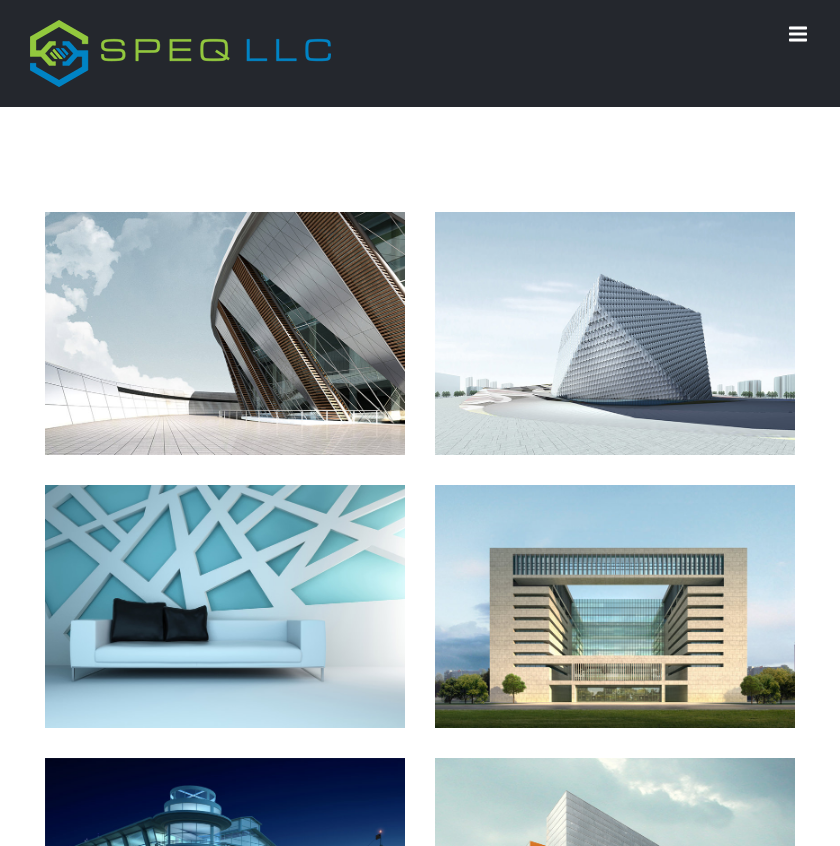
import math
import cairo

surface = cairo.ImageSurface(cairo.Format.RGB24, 840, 846)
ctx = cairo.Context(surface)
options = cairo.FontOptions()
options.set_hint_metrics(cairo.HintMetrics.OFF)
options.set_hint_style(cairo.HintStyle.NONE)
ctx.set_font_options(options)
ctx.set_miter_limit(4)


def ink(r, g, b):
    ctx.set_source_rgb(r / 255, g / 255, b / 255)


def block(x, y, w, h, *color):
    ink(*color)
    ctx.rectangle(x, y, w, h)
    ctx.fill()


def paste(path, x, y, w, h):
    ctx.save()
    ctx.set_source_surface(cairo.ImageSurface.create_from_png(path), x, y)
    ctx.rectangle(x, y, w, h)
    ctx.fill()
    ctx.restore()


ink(255, 255, 255)
ctx.paint()
block(0, 0, 840, 107, 36, 39, 45)
paste("pic1.png", 30, 20, 301, 67)
paste("pic2.png", 789, 26, 18, 16)
paste("pic3.png", 45, 212, 360, 243)
paste("pic4.png", 435, 212, 360, 243)
paste("pic5.png", 45, 485, 360, 243)
paste("pic6.png", 435, 485, 360, 243)
paste("pic7.png", 45, 758, 360, 88)
paste("pic8.png", 435, 758, 360, 88)
surface.write_to_png("screenshot.png")
